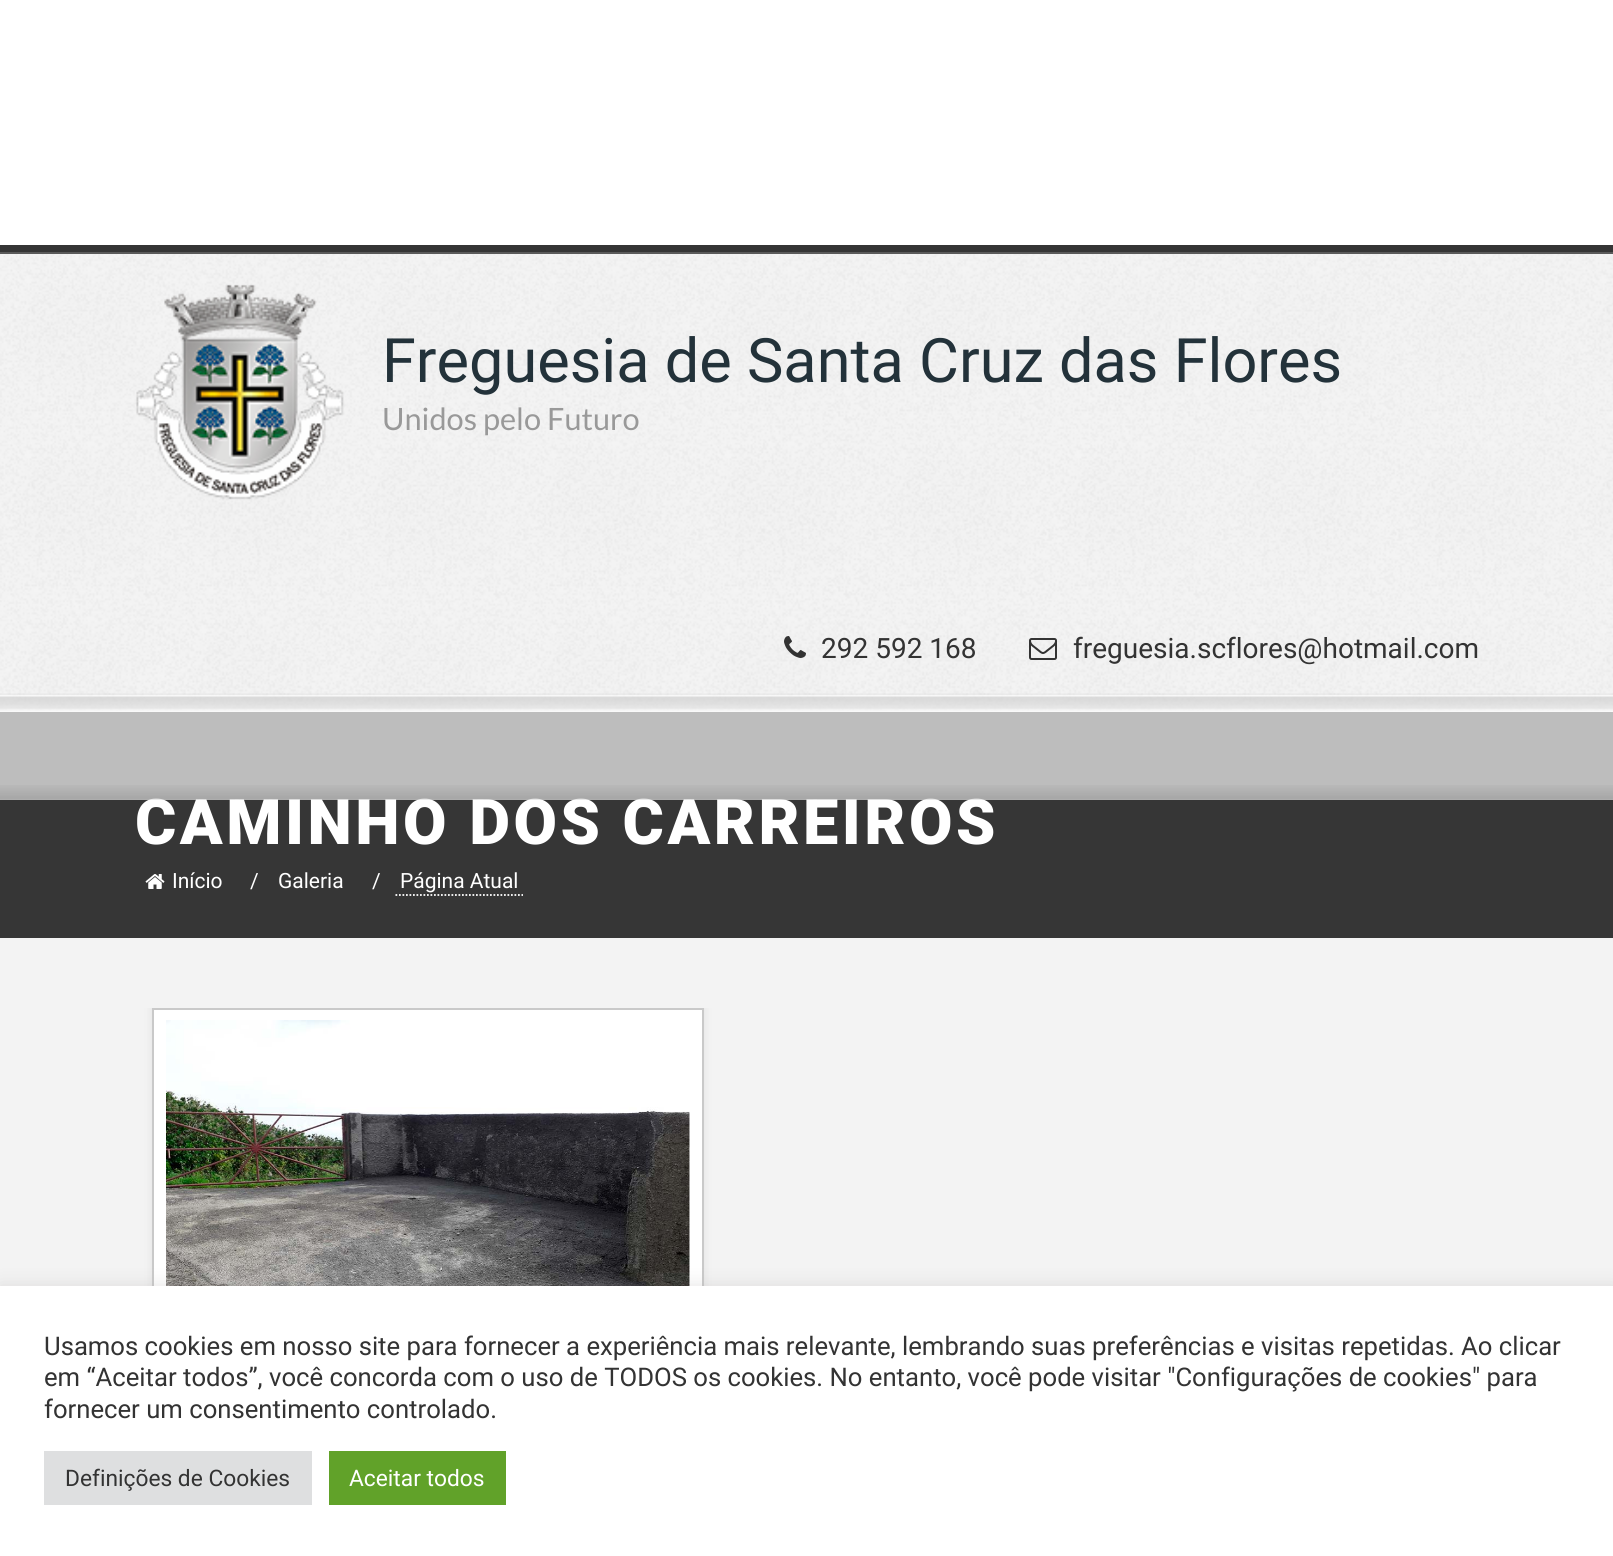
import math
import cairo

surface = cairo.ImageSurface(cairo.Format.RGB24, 1613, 1556)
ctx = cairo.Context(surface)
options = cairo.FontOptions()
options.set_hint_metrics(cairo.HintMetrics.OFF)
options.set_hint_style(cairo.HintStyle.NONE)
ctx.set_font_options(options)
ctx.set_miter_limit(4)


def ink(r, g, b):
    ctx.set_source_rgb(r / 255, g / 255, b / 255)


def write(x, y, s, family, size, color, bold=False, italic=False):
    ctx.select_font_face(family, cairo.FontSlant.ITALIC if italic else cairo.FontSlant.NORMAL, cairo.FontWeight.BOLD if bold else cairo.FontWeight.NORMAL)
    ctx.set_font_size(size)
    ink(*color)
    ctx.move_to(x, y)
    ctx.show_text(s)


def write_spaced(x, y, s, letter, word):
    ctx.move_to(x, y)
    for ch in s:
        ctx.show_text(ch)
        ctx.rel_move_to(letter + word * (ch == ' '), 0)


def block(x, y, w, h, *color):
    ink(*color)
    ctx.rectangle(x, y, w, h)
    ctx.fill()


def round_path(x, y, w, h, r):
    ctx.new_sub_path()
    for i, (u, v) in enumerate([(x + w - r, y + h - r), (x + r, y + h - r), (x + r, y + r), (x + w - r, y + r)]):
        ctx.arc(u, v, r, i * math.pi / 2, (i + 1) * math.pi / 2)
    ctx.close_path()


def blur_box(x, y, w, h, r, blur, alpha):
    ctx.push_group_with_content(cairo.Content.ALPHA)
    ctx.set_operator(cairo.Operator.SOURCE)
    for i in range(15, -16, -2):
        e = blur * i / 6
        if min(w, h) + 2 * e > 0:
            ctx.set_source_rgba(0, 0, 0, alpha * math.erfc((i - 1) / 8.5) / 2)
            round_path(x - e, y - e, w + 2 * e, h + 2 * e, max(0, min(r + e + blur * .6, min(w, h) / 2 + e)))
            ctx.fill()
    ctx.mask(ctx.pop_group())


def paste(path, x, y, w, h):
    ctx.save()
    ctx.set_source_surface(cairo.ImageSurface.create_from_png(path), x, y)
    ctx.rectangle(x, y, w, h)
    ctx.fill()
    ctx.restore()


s1 = dict(family="Roboto", size=61.25, color=(35, 50, 58))
s2 = dict(family="Lato", size=30.75, color=(153, 153, 153))
s3 = dict(family="Roboto", size=28, color=(51, 51, 51))
s4 = dict(family="Roboto", size=21, color=(255, 255, 255))
s5 = dict(family="Roboto", size=25.67, color=(51, 51, 51))
s6 = dict(family="Roboto", size=22.75, color=(51, 51, 51))
s7 = dict(family="Roboto", size=22.75, color=(255, 255, 255))

ink(255, 255, 255)
ctx.paint()
paste("pic1.png", 0, 254, 1613, 457)
block(0, 252, 1613, 2, 90, 90, 90)
block(0, 245, 1613, 7, 53, 53, 53)
paste("pic2.png", 136, 284, 208, 216)
write(382, 382, "Freguesia de Santa Cruz das Flores", **s1)
write(382, 430, "Unidos pelo Futuro", **s2)
paste("pic3.png", 784, 636, 22, 22)
write(821, 658, "292 592 168", **s3)
paste("pic4.png", 1029, 638, 28, 22)
write(1073, 658, "freguesia.scflores@hotmail.com", **s3)
paste("pic5.png", 0, 693, 1613, 16)
block(0, 712, 1613, 226, 54, 54, 54)
ctx.select_font_face("Roboto Black")
ctx.set_font_size(63)
ink(255, 255, 255)
write_spaced(135, 844, "CAMINHO DOS CARREIROS", 3.5, 0)
ctx.set_source_rgba(1, 1, 1, 0.67)
ctx.rectangle(0, 695, 1613, 105)
ctx.fill()
paste("pic6.png", 0, 696, 1613, 16)
paste("pic7.png", 0, 785, 1613, 15)
paste("pic8.png", 145, 874, 20, 15)
write(172, 888, "Início", **s4)
write(250, 888, "/", **s4)
write(278, 888, "Galeria", **s4)
write(372, 888, "/", **s4)
write(400, 888, "Página Atual", **s4)
ctx.new_path()
ctx.move_to(395.5, 895)
ctx.line_to(523, 895)
ctx.set_line_width(1.8)
ctx.set_dash([1.75, 1.75])
ctx.stroke()
block(0, 938, 1613, 348, 243, 243, 243)
ctx.save()
ctx.rectangle(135, 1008, 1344, 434)
ctx.clip()
ink(234, 234, 234)
blur_box(149, 1005, 558, 423, 0, 2.5, 1)
ctx.restore()
block(154, 1010, 548, 276, 255, 255, 255)
ctx.rectangle(153, 1009, 550, 415)
ink(201, 201, 201)
ctx.set_line_width(2)
ctx.set_dash([])
ctx.stroke()
paste("pic9.png", 166, 1020, 524, 266)
ink(172, 171, 171)
blur_box(0, 1285, 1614, 271, 0, 9, 0.3)
block(0, 1286, 1613, 270, 255, 255, 255)
write(44, 1355, "Usamos cookies em nosso site para fornecer a experiência mais relevante, lembrando suas preferências e visitas repetidas. Ao clicar", **s5)
write(44, 1386, "em “Aceitar todos”, você concorda com o uso de TODOS os cookies. No entanto, você pode visitar \"Configurações de cookies\" para", **s5)
write(44, 1418, "fornecer um consentimento controlado.", **s5)
block(44, 1451, 268, 54, 222, 223, 224)
write(65, 1486, "Definições de Cookies", **s6)
block(329, 1451, 177, 54, 97, 162, 41)
write(349, 1486, "Aceitar todos", **s7)
surface.write_to_png("screenshot.png")
